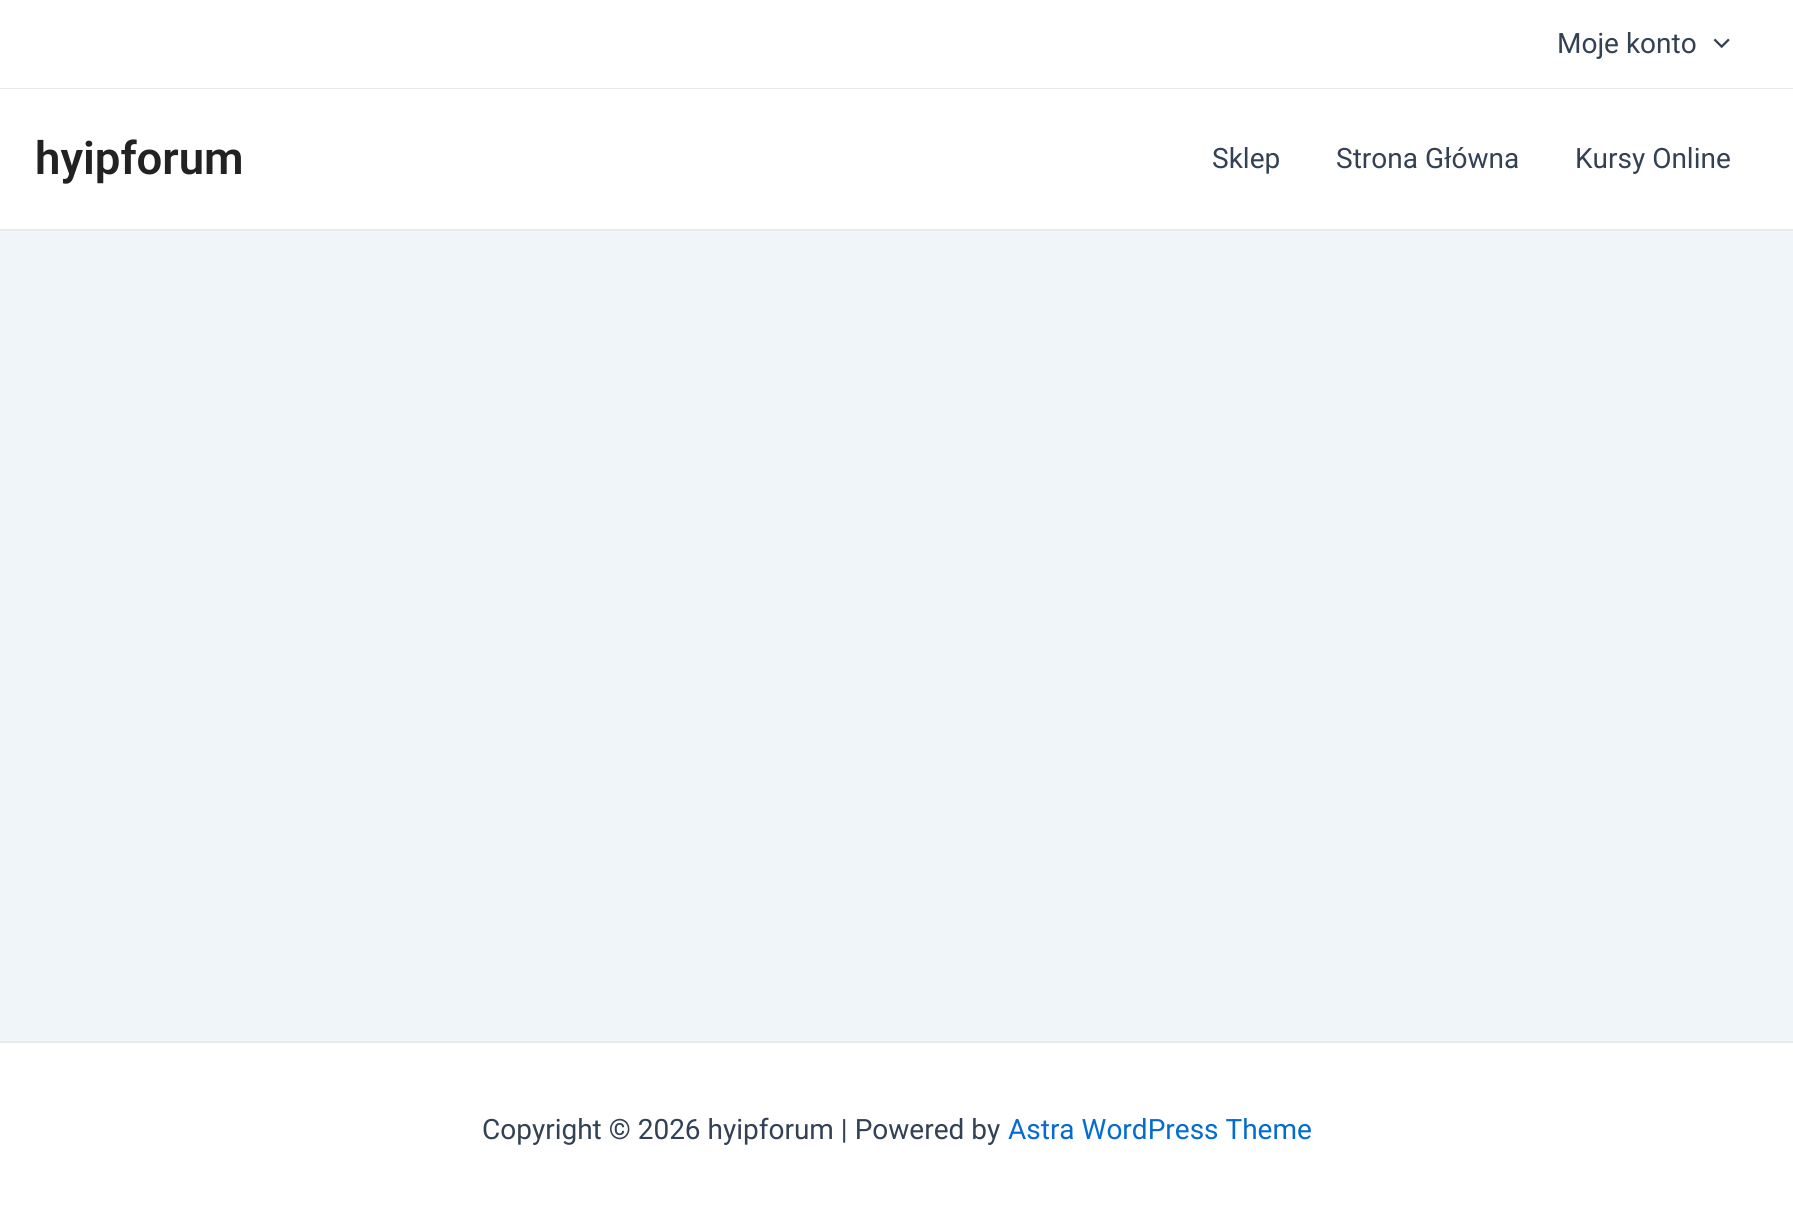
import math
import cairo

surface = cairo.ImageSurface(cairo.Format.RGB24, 1793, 1217)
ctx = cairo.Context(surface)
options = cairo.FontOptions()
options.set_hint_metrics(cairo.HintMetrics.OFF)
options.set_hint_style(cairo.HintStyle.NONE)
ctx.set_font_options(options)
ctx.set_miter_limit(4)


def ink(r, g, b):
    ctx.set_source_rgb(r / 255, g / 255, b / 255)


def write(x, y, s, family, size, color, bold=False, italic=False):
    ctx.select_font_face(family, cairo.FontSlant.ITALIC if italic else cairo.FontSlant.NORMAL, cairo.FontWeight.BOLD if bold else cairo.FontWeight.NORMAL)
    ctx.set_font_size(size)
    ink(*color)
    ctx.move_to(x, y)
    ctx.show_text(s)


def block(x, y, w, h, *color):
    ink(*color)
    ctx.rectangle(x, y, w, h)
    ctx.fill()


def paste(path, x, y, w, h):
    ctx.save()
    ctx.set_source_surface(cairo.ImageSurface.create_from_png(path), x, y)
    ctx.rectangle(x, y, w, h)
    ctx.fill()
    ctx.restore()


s1 = dict(family="Roboto", size=28, color=(51, 65, 85))
s2 = dict(family="Roboto SemiBold", size=45.5, color=(34, 34, 34))
s3 = dict(family="Roboto", size=28, color=(4, 107, 210))

ink(240, 245, 250)
ctx.paint()
block(0, 0, 1793, 88, 255, 255, 255)
block(0, 88, 1793, 1, 234, 234, 234)
write(1557, 53, "Moje konto", **s1)
paste("pic1.png", 1713, 38, 17, 11)
block(0, 89, 1793, 140, 255, 255, 255)
block(0, 229, 1793, 2, 234, 234, 234)
write(35, 174, "hyipforum", **s2)
write(1212, 168, "Sklep", **s1)
write(1336, 168, "Strona Główna", **s1)
write(1575, 168, "Kursy Online", **s1)
block(0, 1043, 1793, 174, 255, 255, 255)
block(0, 1041, 1793, 2, 234, 234, 234)
write(482, 1139, "Copyright © 2026 hyipforum | Powered by", **s1)
write(1008, 1139, "Astra WordPress Theme", **s3)
surface.write_to_png("screenshot.png")
